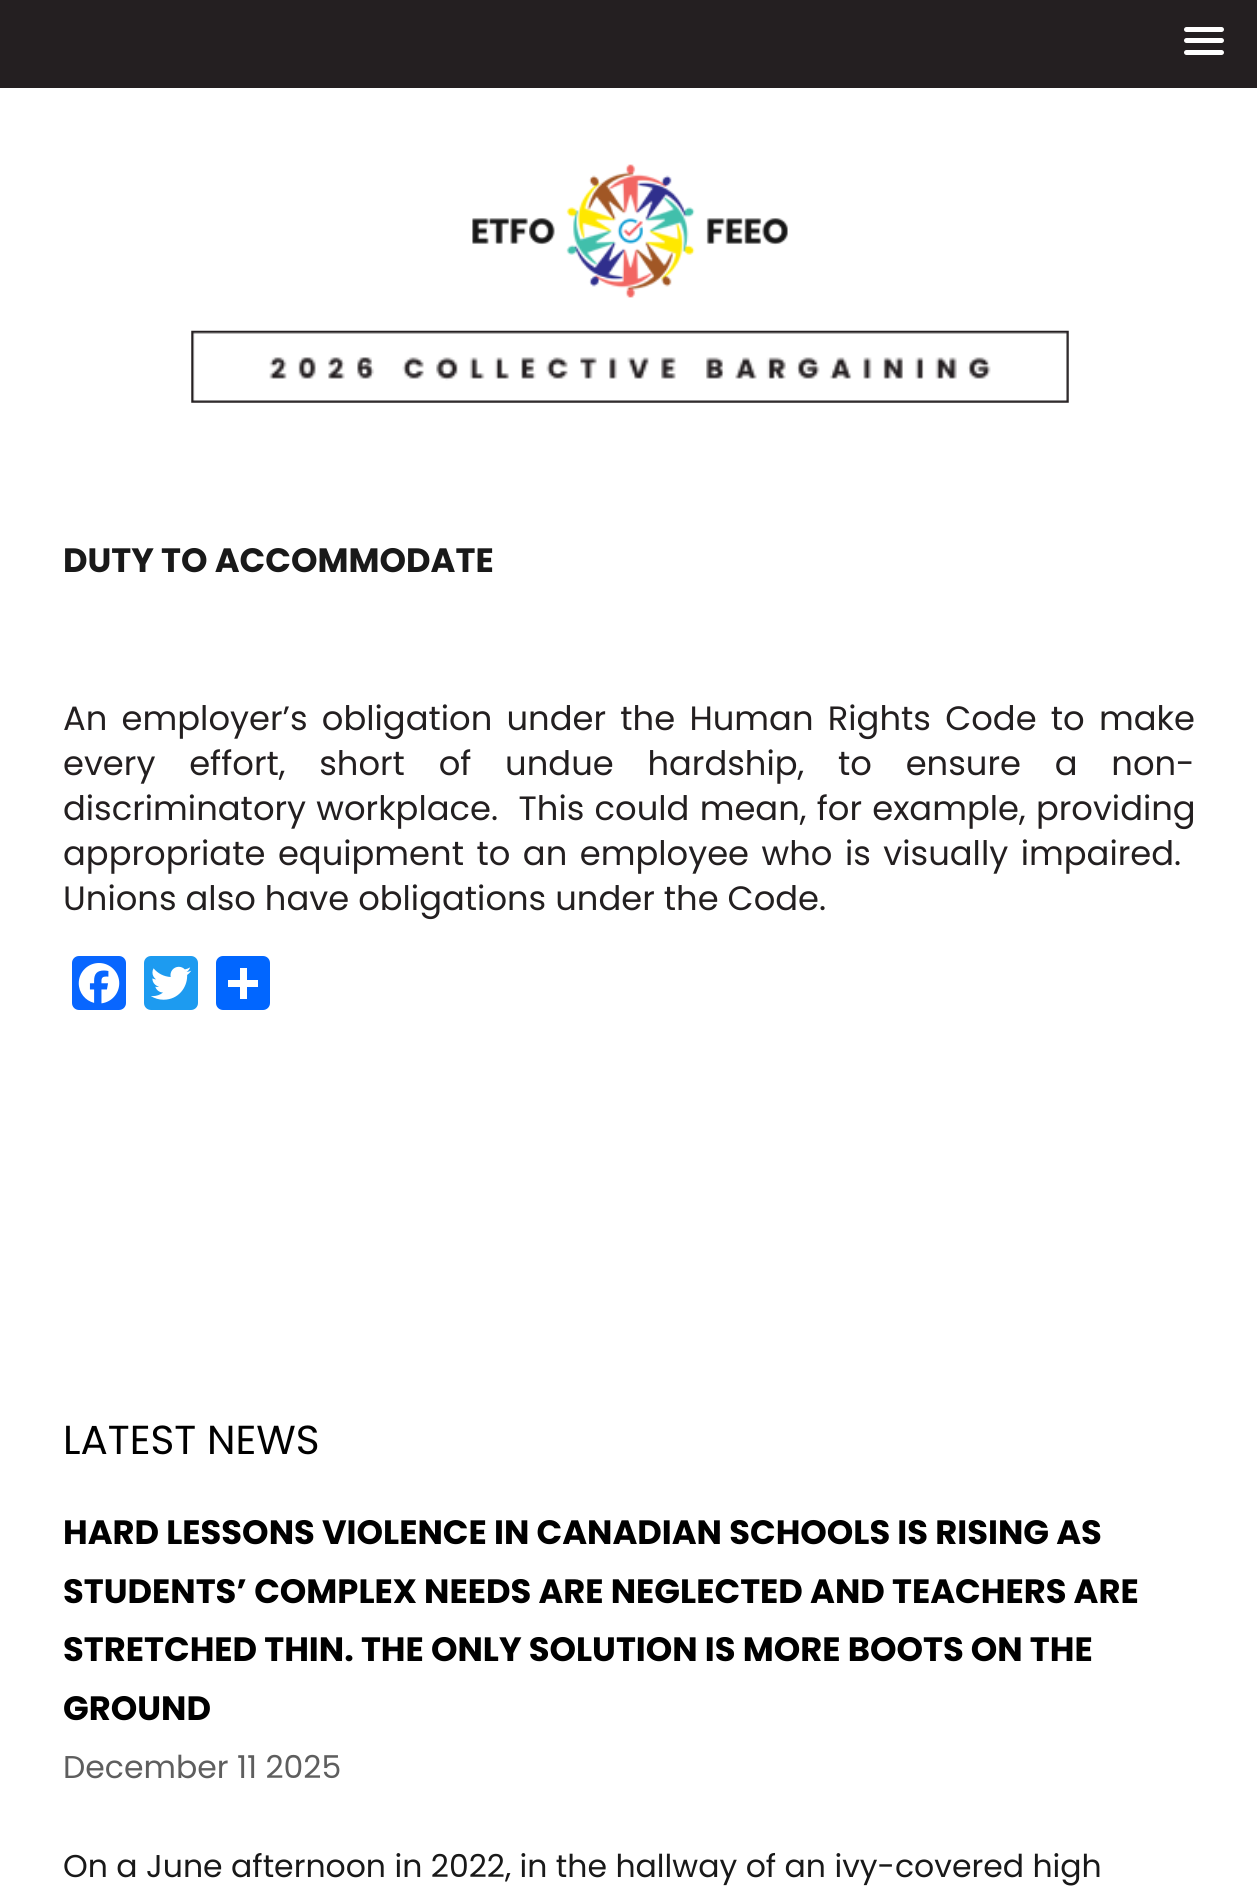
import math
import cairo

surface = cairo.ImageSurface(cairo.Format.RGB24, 1257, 1903)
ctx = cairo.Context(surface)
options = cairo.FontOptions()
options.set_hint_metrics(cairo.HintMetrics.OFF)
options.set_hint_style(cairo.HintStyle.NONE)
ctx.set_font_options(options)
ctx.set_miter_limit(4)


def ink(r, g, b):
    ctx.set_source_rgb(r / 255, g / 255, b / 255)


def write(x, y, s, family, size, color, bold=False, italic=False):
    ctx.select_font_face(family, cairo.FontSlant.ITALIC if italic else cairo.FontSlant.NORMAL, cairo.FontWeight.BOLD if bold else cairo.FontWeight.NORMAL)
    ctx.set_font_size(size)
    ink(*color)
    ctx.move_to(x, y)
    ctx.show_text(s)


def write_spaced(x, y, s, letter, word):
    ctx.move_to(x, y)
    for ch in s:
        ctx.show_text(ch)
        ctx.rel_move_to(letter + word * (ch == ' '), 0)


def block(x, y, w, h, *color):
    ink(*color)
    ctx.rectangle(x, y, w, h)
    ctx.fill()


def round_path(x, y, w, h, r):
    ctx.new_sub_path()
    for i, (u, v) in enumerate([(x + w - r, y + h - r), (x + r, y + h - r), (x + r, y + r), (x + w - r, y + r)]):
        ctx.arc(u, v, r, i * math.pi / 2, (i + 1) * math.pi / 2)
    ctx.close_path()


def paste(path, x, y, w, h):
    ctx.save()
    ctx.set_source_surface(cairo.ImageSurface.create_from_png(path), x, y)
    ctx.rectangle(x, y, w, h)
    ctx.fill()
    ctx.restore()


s1 = dict(family="Poppins", size=33.75, color=(25, 25, 25), bold=True)
s2 = dict(family="Poppins", size=33.75, color=(35, 31, 32))
s3 = dict(family="Poppins", size=40.5, color=(0, 0, 0))
s4 = dict(family="Poppins", size=33.75, color=(0, 0, 0), bold=True)
s5 = dict(family="Poppins", size=31.5, color=(94, 94, 94))
s6 = dict(family="Poppins", size=31.5, color=(25, 25, 25))

ink(36, 31, 33)
ctx.paint()
ink(255, 255, 255)
round_path(1184, 27, 40, 5, 2.5)
ctx.fill()
round_path(1184, 38, 40, 5, 2.5)
ctx.fill()
round_path(1184, 50, 40, 5, 2.5)
ctx.fill()
block(0, 88, 1257, 1815, 255, 255, 255)
paste("pic1.png", 472, 164, 316, 134)
paste("pic2.png", 191, 330, 878, 73)
write(63, 572, "DUTY TO ACCOMMODATE", **s1)
ctx.select_font_face("Poppins")
ink(35, 31, 32)
write_spaced(63, 730, "An employer’s obligation under the Human Rights Code to make", 0, 5.25)
write_spaced(63, 775, "every effort, short of undue hardship, to ensure a non-", 0, 24.75)
write_spaced(63, 820, "discriminatory workplace.  This could mean, for example, providing", 0, 1.25)
write_spaced(63, 865, "appropriate equipment to an employee who is visually impaired.", 0, 3.5)
write(63, 910, "Unions also have obligations under the Code.", **s2)
ink(8, 102, 255)
round_path(72, 956, 54, 54, 7)
ctx.fill()
paste("pic3.png", 78, 963, 42, 41)
ink(29, 155, 240)
round_path(144, 956, 54, 54, 7)
ctx.fill()
paste("pic4.png", 151, 966, 41, 34)
ink(1, 102, 255)
round_path(216, 956, 54, 54, 7)
ctx.fill()
block(240, 968, 7, 31, 255, 255, 255)
block(228, 980, 30, 7, 255, 255, 255)
write(63, 1454, "LATEST NEWS", **s3)
write(63, 1544, "HARD LESSONS VIOLENCE IN CANADIAN SCHOOLS IS RISING AS", **s4)
write(63, 1603, "STUDENTS’ COMPLEX NEEDS ARE NEGLECTED AND TEACHERS ARE", **s4)
write(63, 1661, "STRETCHED THIN. THE ONLY SOLUTION IS MORE BOOTS ON THE", **s4)
write(63, 1720, "GROUND", **s4)
write(63, 1778, "December 11 2025", **s5)
write(63, 1877, "On a June afternoon in 2022, in the hallway of an ivy-covered high", **s6)
surface.write_to_png("screenshot.png")
